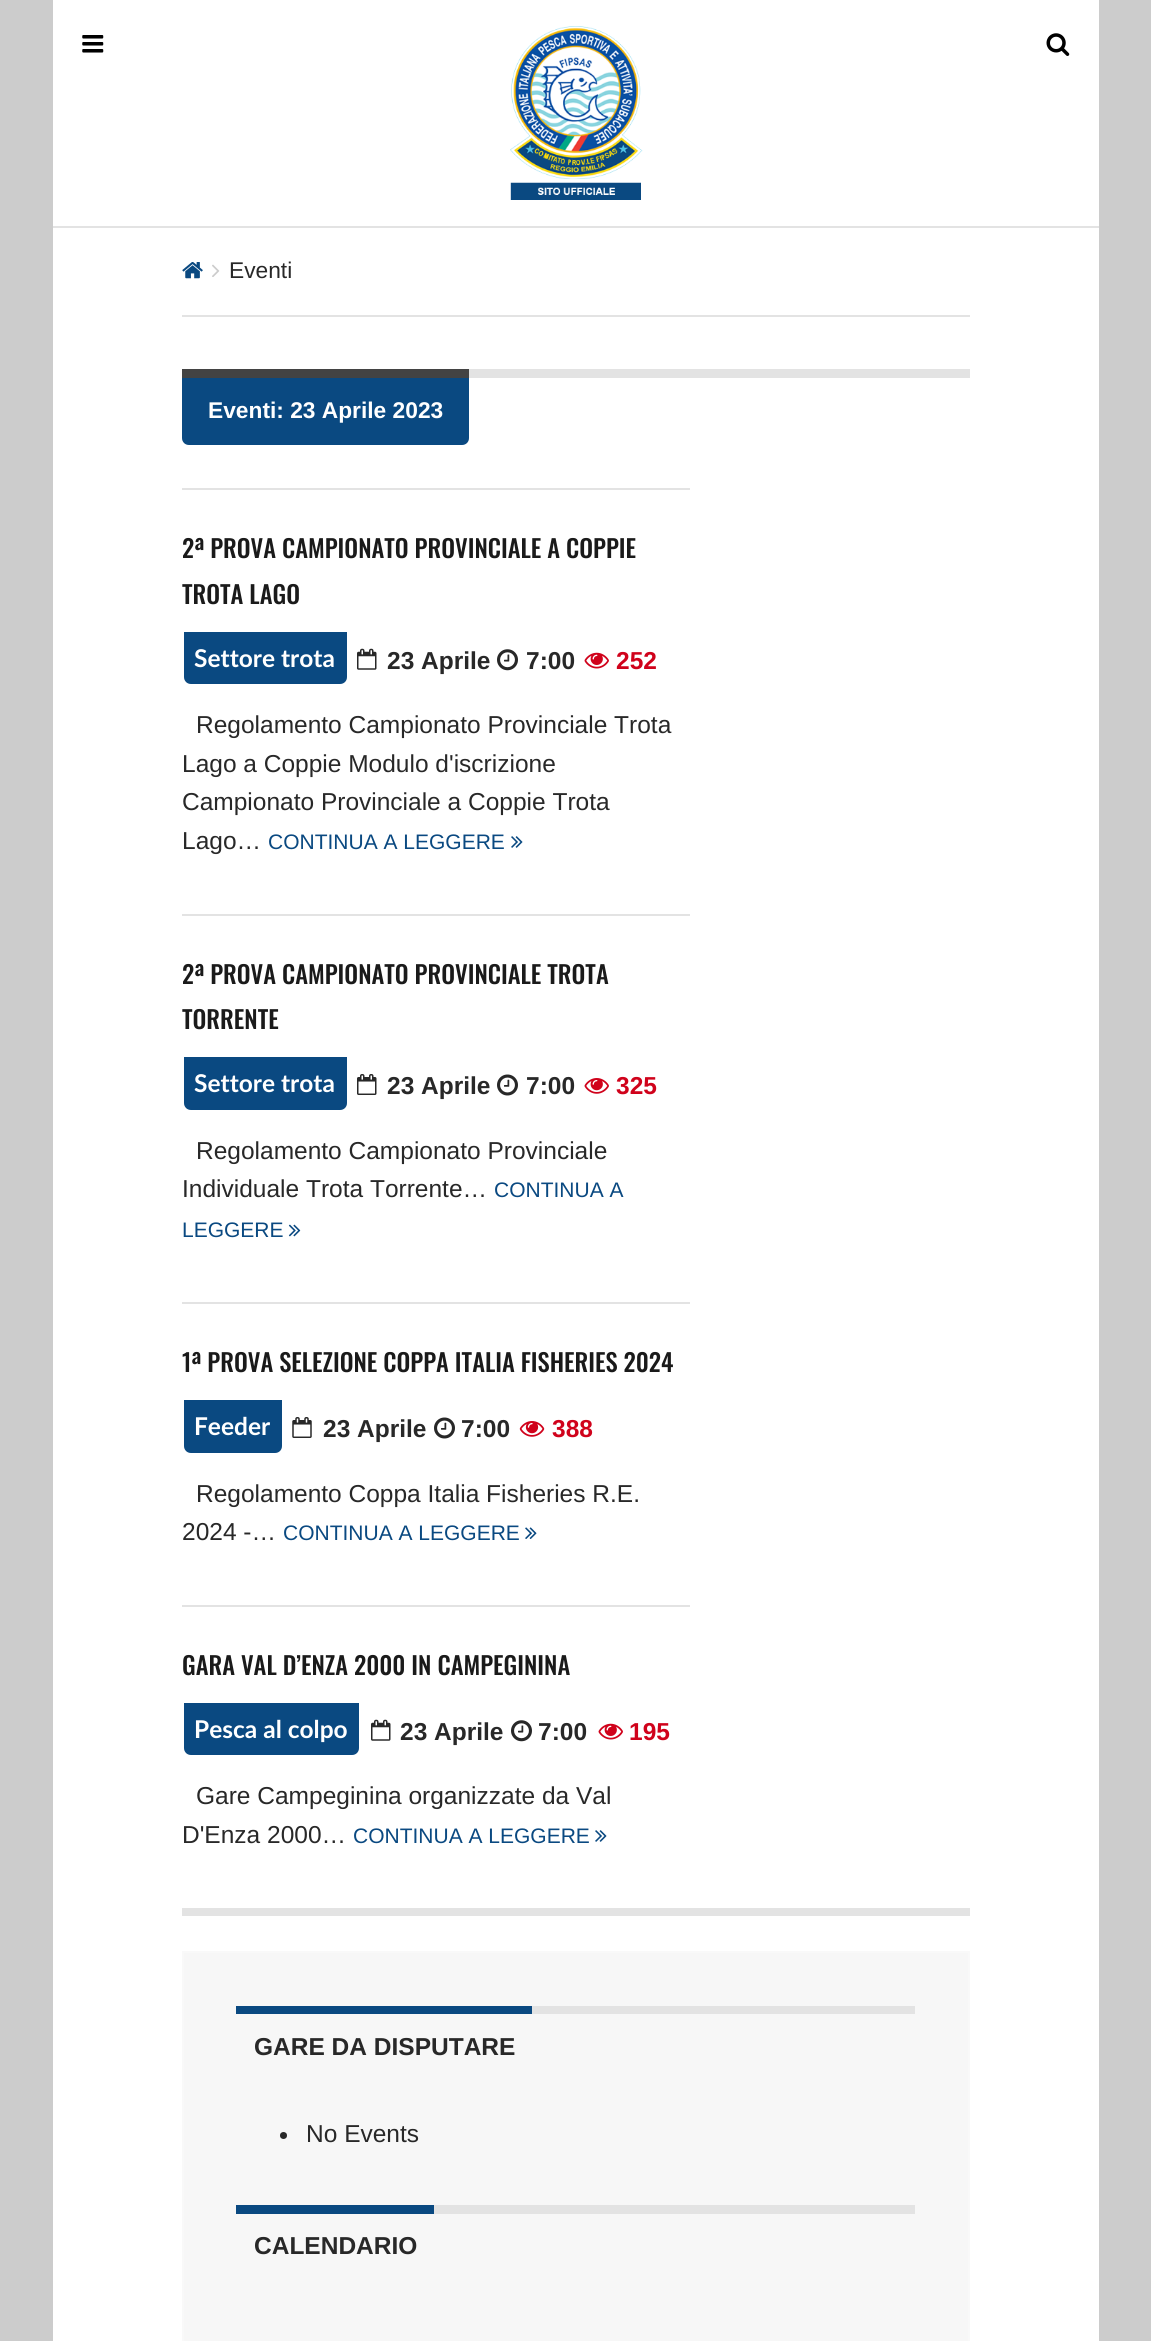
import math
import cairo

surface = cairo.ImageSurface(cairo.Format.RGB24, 1151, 2341)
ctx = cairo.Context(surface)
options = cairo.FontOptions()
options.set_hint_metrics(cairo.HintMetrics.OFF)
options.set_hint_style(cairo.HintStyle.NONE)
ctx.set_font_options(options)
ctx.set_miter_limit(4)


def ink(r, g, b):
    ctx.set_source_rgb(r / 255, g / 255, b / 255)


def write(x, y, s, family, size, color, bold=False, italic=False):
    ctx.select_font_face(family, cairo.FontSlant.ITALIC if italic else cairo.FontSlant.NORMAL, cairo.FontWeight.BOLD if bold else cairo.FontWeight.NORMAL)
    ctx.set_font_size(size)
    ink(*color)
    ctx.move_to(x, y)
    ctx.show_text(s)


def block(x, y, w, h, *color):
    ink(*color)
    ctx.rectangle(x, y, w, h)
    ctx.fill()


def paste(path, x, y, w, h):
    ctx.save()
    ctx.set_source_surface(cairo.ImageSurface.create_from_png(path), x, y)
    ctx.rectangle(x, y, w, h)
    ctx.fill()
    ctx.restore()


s1 = dict(family="Liberation Sans", size=22.75, color=(40, 40, 40))
s2 = dict(family="Liberation Sans", size=22.75, color=(255, 255, 255), bold=True)
s3 = dict(family="Oswald Medium", size=24.5, color=(26, 26, 26))
s4 = dict(family="Lato", size=24.5, color=(255, 255, 255), bold=True)
s5 = dict(family="Liberation Sans", size=24.5, color=(40, 40, 40), bold=True)
s6 = dict(family="Liberation Sans", size=24.5, color=(208, 2, 27), bold=True)
s7 = dict(family="Liberation Sans", size=24.5, color=(40, 40, 40))
s8 = dict(family="Liberation Sans", size=21, color=(10, 73, 129))

ink(204, 204, 204)
ctx.paint()
block(53, 0, 1046, 2341, 255, 255, 255)
block(53, 226, 1046, 2, 227, 227, 227)
paste("pic1.png", 82, 35, 22, 18)
paste("pic2.png", 510, 26, 133, 174)
paste("pic3.png", 1046, 33, 24, 23)
block(182, 315, 788, 2, 227, 227, 227)
paste("pic4.png", 182, 262, 21, 17)
paste("pic5.png", 212, 264, 8, 13)
write(229, 278, "Eventi", **s1)
block(469, 369, 501, 9, 227, 227, 227)
ink(10, 73, 129)
ctx.new_path()
ctx.move_to(182, 369)
ctx.line_to(469, 369)
ctx.line_to(469, 438)
ctx.curve_to(469, 442, 466, 445, 462, 445)
ctx.line_to(189, 445)
ctx.curve_to(185, 445, 182, 442, 182, 438)
ctx.close_path()
ctx.fill()
block(182, 369, 287, 9, 67, 67, 67)
write(208, 418, "Eventi: 23 Aprile 2023", **s2)
block(182, 488, 508, 2, 227, 227, 227)
write(182, 558, "2ª PROVA CAMPIONATO PROVINCIALE A COPPIE", **s3)
write(182, 604, "TROTA LAGO", **s3)
ink(10, 73, 129)
ctx.new_path()
ctx.move_to(184, 632)
ctx.line_to(347, 632)
ctx.line_to(347, 677)
ctx.curve_to(347, 681, 344, 684, 340, 684)
ctx.line_to(191, 684)
ctx.curve_to(187, 684, 184, 681, 184, 677)
ctx.close_path()
ctx.fill()
write(194, 667, "Settore trota", **s4)
paste("pic6.png", 357, 648, 20, 22)
write(387, 669, "23 Aprile", **s5)
paste("pic7.png", 497, 649, 21, 22)
write(526, 669, "7:00", **s5)
paste("pic8.png", 584, 652, 25, 17)
write(616, 669, "252", **s6)
write(196, 733, "Regolamento Campionato Provinciale Trota", **s7)
write(182, 772, "Lago a Coppie Modulo d'iscrizione", **s7)
write(182, 810, "Campionato Provinciale a Coppie Trota", **s7)
write(182, 849, "Lago…", **s7)
write(268, 849, "CONTINUA A LEGGERE", **s8)
paste("pic9.png", 511, 836, 12, 12)
block(182, 914, 508, 2, 227, 227, 227)
write(182, 984, "2ª PROVA CAMPIONATO PROVINCIALE TROTA", **s3)
write(182, 1029, "TORRENTE", **s3)
ink(10, 73, 129)
ctx.new_path()
ctx.move_to(184, 1057)
ctx.line_to(347, 1057)
ctx.line_to(347, 1103)
ctx.curve_to(347, 1107, 344, 1110, 340, 1110)
ctx.line_to(191, 1110)
ctx.curve_to(187, 1110, 184, 1107, 184, 1103)
ctx.close_path()
ctx.fill()
write(194, 1092, "Settore trota", **s4)
paste("pic10.png", 357, 1074, 20, 21)
write(387, 1094, "23 Aprile", **s5)
paste("pic11.png", 497, 1074, 21, 22)
write(526, 1094, "7:00", **s5)
paste("pic12.png", 584, 1078, 25, 16)
write(616, 1094, "325", **s6)
write(196, 1159, "Regolamento Campionato Provinciale", **s7)
write(182, 1197, "Individuale Trota Torrente…", **s7)
write(494, 1197, "CONTINUA A", **s8)
write(182, 1237, "LEGGERE", **s8)
paste("pic13.png", 288, 1224, 13, 13)
block(182, 1302, 508, 2, 227, 227, 227)
write(182, 1372, "1ª PROVA SELEZIONE COPPA ITALIA FISHERIES 2024", **s3)
ink(10, 73, 129)
ctx.new_path()
ctx.move_to(184, 1400)
ctx.line_to(282, 1400)
ctx.line_to(282, 1446)
ctx.curve_to(282, 1450, 279, 1453, 275, 1453)
ctx.line_to(191, 1453)
ctx.curve_to(187, 1453, 184, 1450, 184, 1446)
ctx.close_path()
ctx.fill()
write(194, 1435, "Feeder", **s4)
paste("pic14.png", 292, 1417, 20, 21)
write(323, 1437, "23 Aprile", **s5)
paste("pic11.png", 434, 1417, 21, 22)
write(461, 1437, "7:00", **s5)
paste("pic15.png", 519, 1421, 26, 16)
write(552, 1437, "388", **s6)
write(196, 1502, "Regolamento Coppa Italia Fisheries R.E.", **s7)
write(182, 1540, "2024 -…", **s7)
write(283, 1540, "CONTINUA A LEGGERE", **s8)
paste("pic16.png", 525, 1527, 12, 12)
block(182, 1605, 508, 2, 227, 227, 227)
write(182, 1675, "GARA VAL D’ENZA 2000 IN CAMPEGININA", **s3)
ink(10, 73, 129)
ctx.new_path()
ctx.move_to(184, 1703)
ctx.line_to(359, 1703)
ctx.line_to(359, 1748)
ctx.curve_to(359, 1752, 356, 1755, 352, 1755)
ctx.line_to(191, 1755)
ctx.curve_to(187, 1755, 184, 1752, 184, 1748)
ctx.close_path()
ctx.fill()
write(194, 1738, "Pesca al colpo", **s4)
paste("pic6.png", 371, 1719, 20, 22)
write(400, 1740, "23 Aprile", **s5)
paste("pic7.png", 511, 1720, 21, 22)
write(538, 1740, "7:00", **s5)
paste("pic8.png", 598, 1723, 25, 17)
write(629, 1740, "195", **s6)
write(196, 1804, "Gare Campeginina organizzate da Val", **s7)
write(182, 1843, "D'Enza 2000…", **s7)
write(353, 1843, "CONTINUA A LEGGERE", **s8)
paste("pic9.png", 595, 1830, 12, 12)
block(182, 1908, 788, 8, 227, 227, 227)
ink(247, 247, 247)
ctx.rectangle(183, 1952, 786, 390)
ctx.fill_preserve()
ink(249, 249, 249)
ctx.stroke()
block(532, 2006, 383, 8, 227, 227, 227)
block(236, 2006, 296, 8, 10, 73, 129)
write(254, 2055, "GARE DA DISPUTARE", **s5)
ctx.new_path()
ctx.arc(283.5, 2135.5, 3.5, 0, 2 * math.pi)
ctx.fill()
write(306, 2142, "No Events", **s7)
block(434, 2205, 481, 9, 227, 227, 227)
block(236, 2205, 198, 9, 10, 73, 129)
write(254, 2254, "CALENDARIO", **s5)
surface.write_to_png("screenshot.png")
